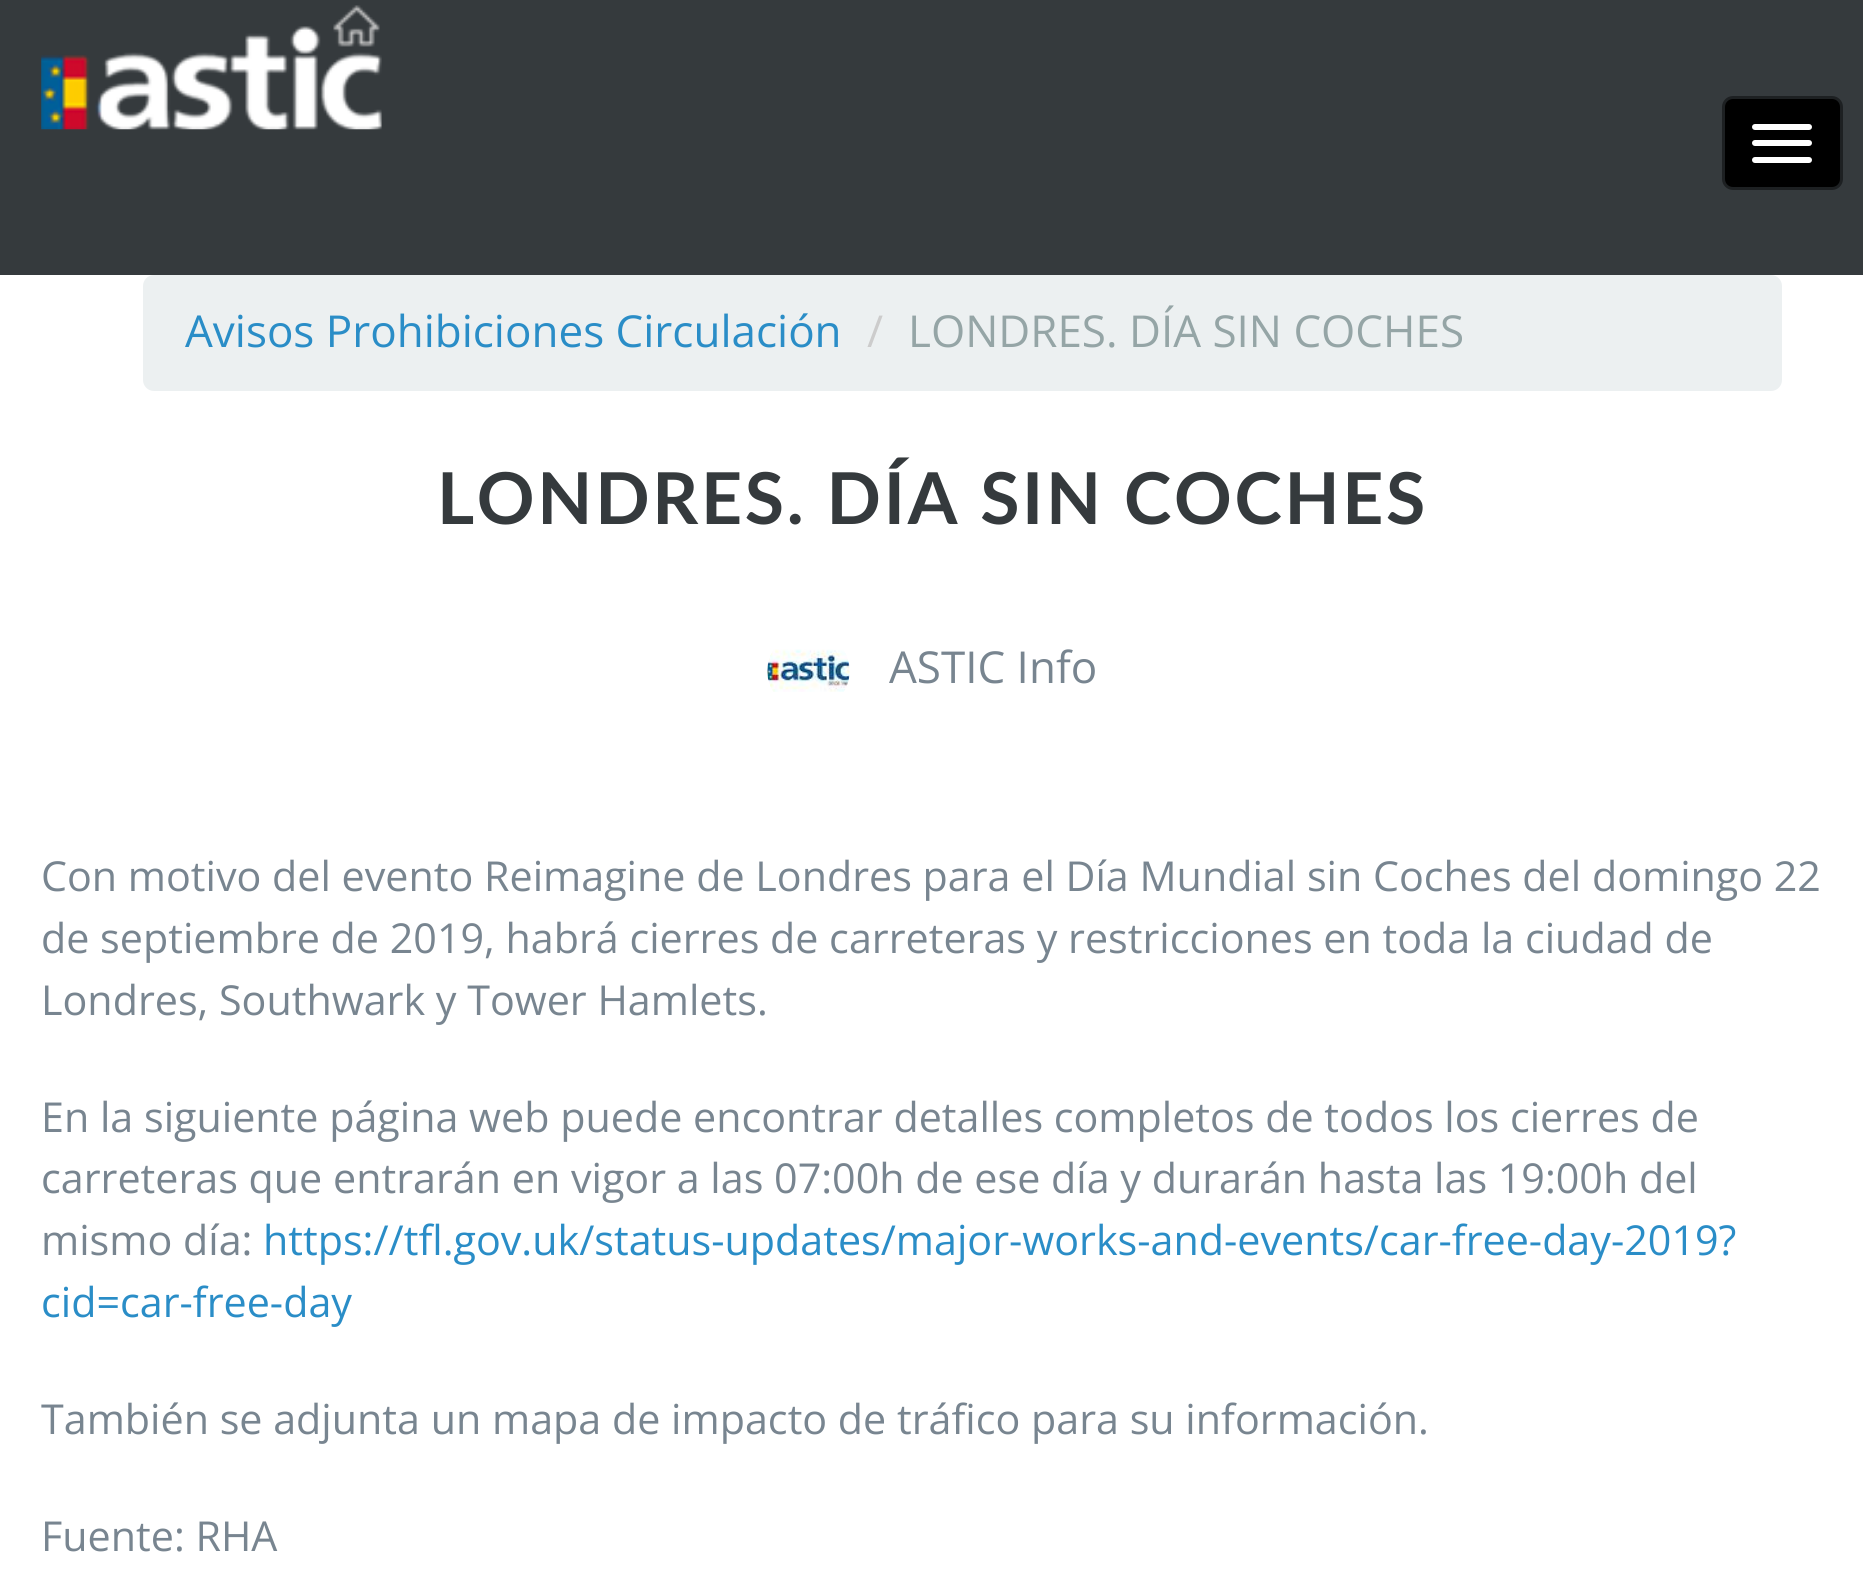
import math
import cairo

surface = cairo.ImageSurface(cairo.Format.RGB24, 1863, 1581)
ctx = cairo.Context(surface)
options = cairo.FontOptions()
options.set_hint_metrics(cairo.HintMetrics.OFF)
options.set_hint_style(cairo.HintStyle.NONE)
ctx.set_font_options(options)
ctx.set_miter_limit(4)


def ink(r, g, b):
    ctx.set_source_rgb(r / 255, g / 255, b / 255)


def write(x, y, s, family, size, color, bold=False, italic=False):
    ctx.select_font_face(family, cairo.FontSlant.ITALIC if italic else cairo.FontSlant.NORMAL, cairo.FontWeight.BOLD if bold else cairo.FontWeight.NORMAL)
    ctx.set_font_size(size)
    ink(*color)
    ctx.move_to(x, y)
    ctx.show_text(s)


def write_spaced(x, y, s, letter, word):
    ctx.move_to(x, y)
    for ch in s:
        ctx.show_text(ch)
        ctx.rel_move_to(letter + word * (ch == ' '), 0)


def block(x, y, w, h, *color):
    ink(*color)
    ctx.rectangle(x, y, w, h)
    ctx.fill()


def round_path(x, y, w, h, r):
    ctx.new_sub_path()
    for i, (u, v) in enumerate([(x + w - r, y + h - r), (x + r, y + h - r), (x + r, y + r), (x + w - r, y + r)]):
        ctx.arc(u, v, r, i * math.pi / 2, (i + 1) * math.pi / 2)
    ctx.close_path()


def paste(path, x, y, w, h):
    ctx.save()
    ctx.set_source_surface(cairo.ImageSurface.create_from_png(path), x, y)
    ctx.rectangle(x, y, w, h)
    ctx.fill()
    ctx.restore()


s1 = dict(family="Open Sans", size=44, color=(42, 141, 199))
s2 = dict(family="Open Sans", size=44, color=(204, 204, 204))
s3 = dict(family="Open Sans", size=44, color=(149, 165, 166))
s4 = dict(family="Open Sans", size=44, color=(120, 133, 144))
s5 = dict(family="Open Sans", size=41.25, color=(120, 133, 144))
s6 = dict(family="Open Sans", size=41.25, color=(42, 141, 199))

ink(255, 255, 255)
ctx.paint()
block(0, 0, 1863, 275, 53, 58, 61)
paste("pic1.png", 41, 5, 341, 125)
ink(0, 0, 0)
round_path(1723.5, 97.5, 118, 91, 9.5)
ctx.fill_preserve()
ink(29, 32, 34)
ctx.set_line_width(3)
ctx.stroke()
ink(255, 255, 255)
round_path(1752, 124, 60, 6, 3)
ctx.fill()
round_path(1752, 140, 60, 6, 3)
ctx.fill()
round_path(1752, 157, 60, 6, 3)
ctx.fill()
ink(236, 240, 241)
round_path(143, 275, 1639, 116, 11)
ctx.fill()
write(185, 347, "Avisos Prohibiciones Circulación", **s1)
write(867, 347, "/", **s2)
write(908, 347, "LONDRES. DÍA SIN COCHES", **s3)
ctx.select_font_face("Lato", cairo.FontSlant.NORMAL, cairo.FontWeight.BOLD)
ctx.set_font_size(71.5)
ink(53, 58, 61)
write_spaced(437, 524, "LONDRES. DÍA SIN COCHES", 2.75, 0)
paste("pic2.png", 767, 649, 83, 43)
write(889, 683, "ASTIC Info", **s4)
write(41, 891, "Con motivo del evento Reimagine de Londres para el Día Mundial sin Coches del domingo 22", **s5)
write(41, 953, "de septiembre de 2019, habrá cierres de carreteras y restricciones en toda la ciudad de", **s5)
write(41, 1015, "Londres, Southwark y Tower Hamlets.", **s5)
write(41, 1132, "En la siguiente página web puede encontrar detalles completos de todos los cierres de", **s5)
write(41, 1193, "carreteras que entrarán en vigor a las 07:00h de ese día y durarán hasta las 19:00h del", **s5)
write(41, 1255, "mismo día:", **s5)
write(263, 1255, "https://tfl.gov.uk/status-updates/major-works-and-events/car-free-day-2019?", **s6)
write(41, 1317, "cid=car-free-day", **s6)
write(41, 1434, "También se adjunta un mapa de impacto de tráfico para su información.", **s5)
write(41, 1551, "Fuente: RHA", **s5)
surface.write_to_png("screenshot.png")
